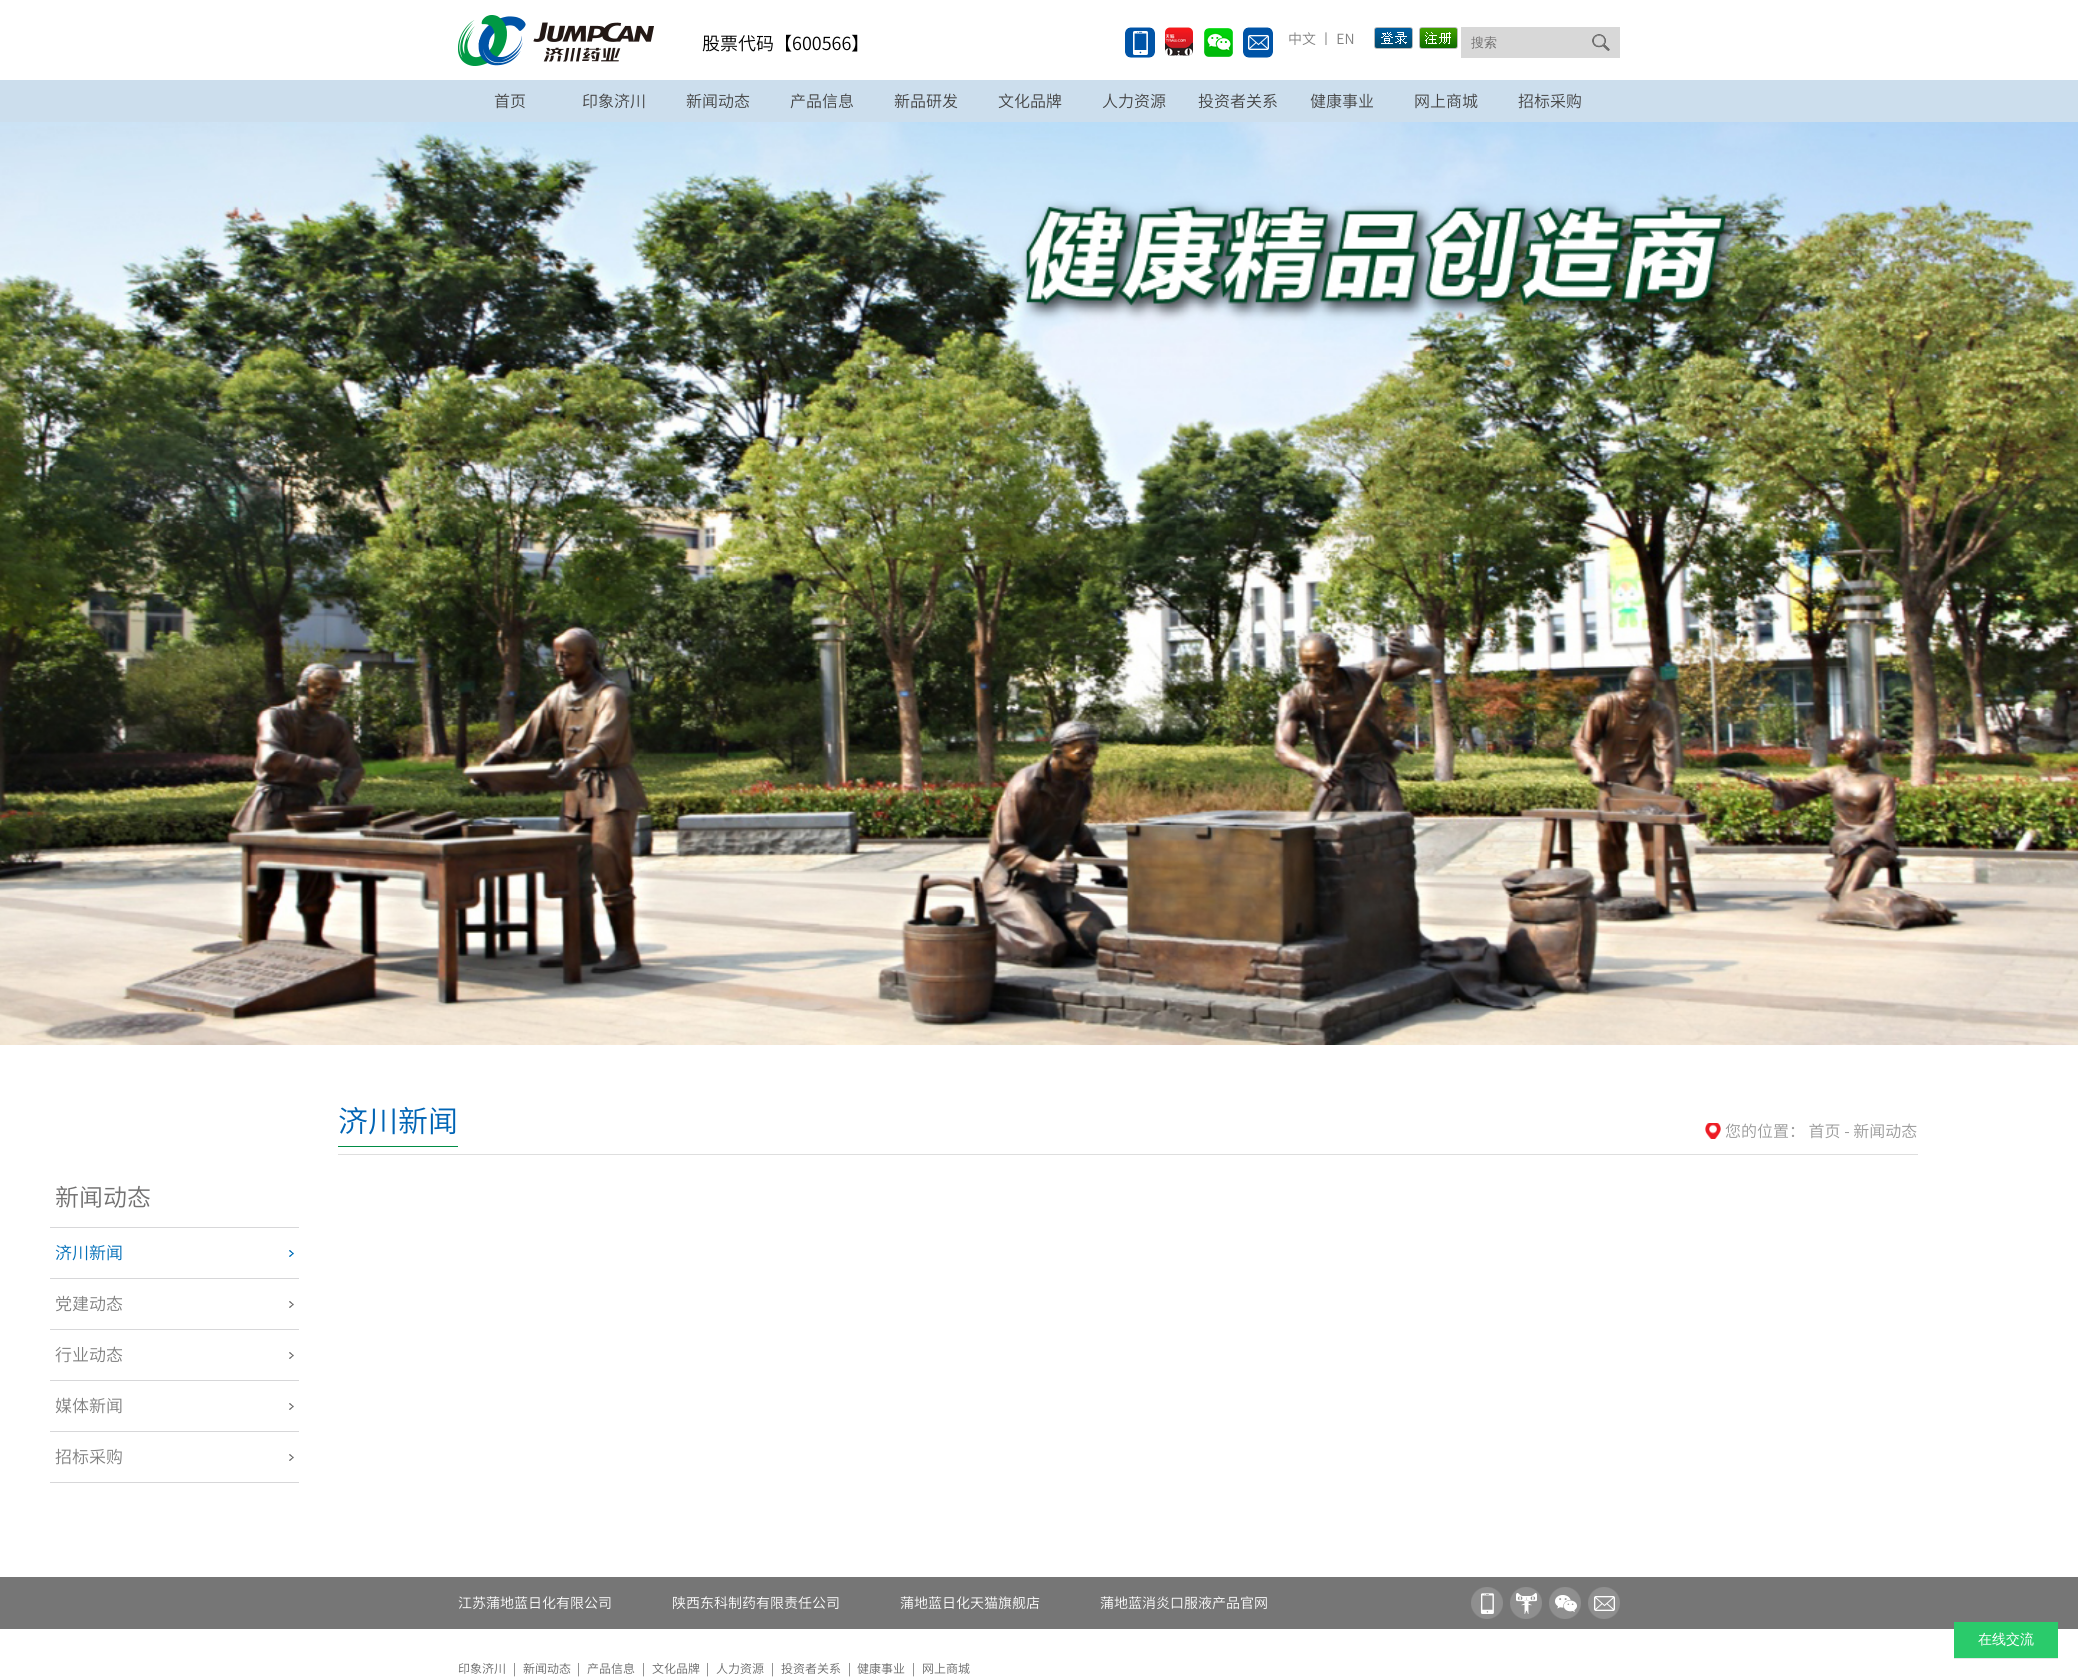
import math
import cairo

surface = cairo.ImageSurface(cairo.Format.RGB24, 2078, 1679)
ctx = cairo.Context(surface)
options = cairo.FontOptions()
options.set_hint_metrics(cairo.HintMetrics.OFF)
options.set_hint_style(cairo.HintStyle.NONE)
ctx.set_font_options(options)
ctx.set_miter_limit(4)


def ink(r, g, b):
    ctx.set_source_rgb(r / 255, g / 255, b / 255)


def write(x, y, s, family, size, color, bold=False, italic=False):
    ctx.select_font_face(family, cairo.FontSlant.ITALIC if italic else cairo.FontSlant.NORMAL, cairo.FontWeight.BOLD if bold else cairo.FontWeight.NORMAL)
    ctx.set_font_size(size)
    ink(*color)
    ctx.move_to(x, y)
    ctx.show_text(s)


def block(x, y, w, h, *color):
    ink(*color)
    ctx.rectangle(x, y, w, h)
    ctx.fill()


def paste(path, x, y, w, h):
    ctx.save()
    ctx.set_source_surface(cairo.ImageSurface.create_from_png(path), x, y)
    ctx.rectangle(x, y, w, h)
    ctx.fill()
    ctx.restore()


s1 = dict(family="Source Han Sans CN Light", size=18, color=(0, 0, 0))
s2 = dict(family="Source Han Sans CN Light", size=14, color=(128, 128, 128))
s3 = dict(family="WenQuanYi Zen Hei Medium", size=13, color=(114, 113, 113))
s4 = dict(family="Source Han Sans CN Light", size=16, color=(68, 68, 68))
s5 = dict(family="Source Han Sans CN Light", size=30, color=(0, 100, 181))
s6 = dict(family="Source Han Sans CN Light", size=16, color=(153, 153, 153))
s7 = dict(family="Source Han Sans CN Light", size=24, color=(114, 113, 113))
s8 = dict(family="Source Han Sans CN Light", size=17, color=(0, 110, 184))
s9 = dict(family="Source Han Sans CN Light", size=17, color=(128, 128, 128))
s10 = dict(family="Source Han Sans CN Light", size=14, color=(255, 255, 255))
s11 = dict(family="WenQuanYi Zen Hei Medium", size=14, color=(255, 255, 255))
s12 = dict(family="Source Han Sans CN Light", size=12, color=(102, 102, 102))

ink(255, 255, 255)
ctx.paint()
paste("pic1.png", 458, 15, 196, 51)
write(702, 50, "股票代码【600566】", **s1)
paste("pic2.png", 1125, 27, 30, 31)
paste("pic3.png", 1165, 27, 28, 29)
paste("pic4.png", 1204, 28, 29, 29)
paste("pic5.png", 1243, 27, 30, 31)
write(1288, 44, "中文 丨 EN", **s2)
paste("pic6.png", 1374, 27, 39, 22)
paste("pic7.png", 1419, 27, 39, 22)
block(1461, 27, 159, 31, 216, 216, 216)
write(1471, 47, "搜索", **s3)
paste("pic8.png", 1592, 34, 18, 17)
block(0, 80, 2078, 42, 204, 222, 237)
write(494, 107, "首页", **s4)
write(582, 107, "印象济川", **s4)
write(686, 107, "新闻动态", **s4)
write(790, 107, "产品信息", **s4)
write(894, 107, "新品研发", **s4)
write(998, 107, "文化品牌", **s4)
write(1102, 107, "人力资源", **s4)
write(1198, 107, "投资者关系", **s4)
write(1310, 107, "健康事业", **s4)
write(1414, 107, "网上商城", **s4)
write(1518, 107, "招标采购", **s4)
paste("pic9.png", 0, 122, 2078, 923)
block(338, 1154, 1580, 1, 222, 222, 222)
write(338, 1132, "济川新闻", **s5)
block(338, 1146, 120, 1, 0, 140, 69)
paste("pic10.png", 1705, 1123, 16, 16)
write(1725, 1137, "您的位置： 首页 - 新闻动态", **s6)
block(50, 1227, 249, 1, 215, 215, 217)
write(55, 1206, "新闻动态", **s7)
block(50, 1278, 249, 1, 215, 215, 217)
paste("pic11.png", 289, 1250, 5, 7)
write(55, 1259, "济川新闻", **s8)
block(50, 1329, 249, 1, 215, 215, 217)
paste("pic12.png", 289, 1301, 5, 7)
write(55, 1310, "党建动态", **s9)
block(50, 1380, 249, 1, 215, 215, 217)
paste("pic12.png", 289, 1352, 5, 7)
write(55, 1361, "行业动态", **s9)
block(50, 1431, 249, 1, 215, 215, 217)
paste("pic12.png", 289, 1403, 5, 7)
write(55, 1412, "媒体新闻", **s9)
block(50, 1482, 249, 1, 215, 215, 217)
paste("pic12.png", 289, 1454, 5, 7)
write(55, 1463, "招标采购", **s9)
block(0, 1577, 2078, 52, 118, 118, 118)
write(458, 1608, "江苏蒲地蓝日化有限公司", **s10)
write(672, 1608, "陕西东科制药有限责任公司", **s10)
write(900, 1608, "蒲地蓝日化天猫旗舰店", **s10)
write(1100, 1608, "蒲地蓝消炎口服液产品官网", **s10)
paste("pic13.png", 1471, 1587, 32, 32)
paste("pic14.png", 1510, 1587, 32, 32)
paste("pic15.png", 1549, 1587, 32, 32)
paste("pic16.png", 1588, 1587, 32, 32)
ctx.rectangle(1954.5, 1622.5, 103, 36)
ink(230, 230, 230)
ctx.set_line_width(1)
ctx.stroke()
block(1954, 1622, 104, 36, 42, 203, 107)
write(1978, 1644, "在线交流", **s11)
write(458, 1673, "印象济川", **s12)
write(513, 1673, "|", **s12)
write(523, 1673, "新闻动态", **s12)
write(577, 1673, "|", **s12)
write(587, 1673, "产品信息", **s12)
write(642, 1673, "|", **s12)
write(652, 1673, "文化品牌", **s12)
write(706, 1673, "|", **s12)
write(716, 1673, "人力资源", **s12)
write(771, 1673, "|", **s12)
write(781, 1673, "投资者关系", **s12)
write(848, 1673, "|", **s12)
write(857, 1673, "健康事业", **s12)
write(912, 1673, "|", **s12)
write(922, 1673, "网上商城", **s12)
surface.write_to_png("screenshot.png")
